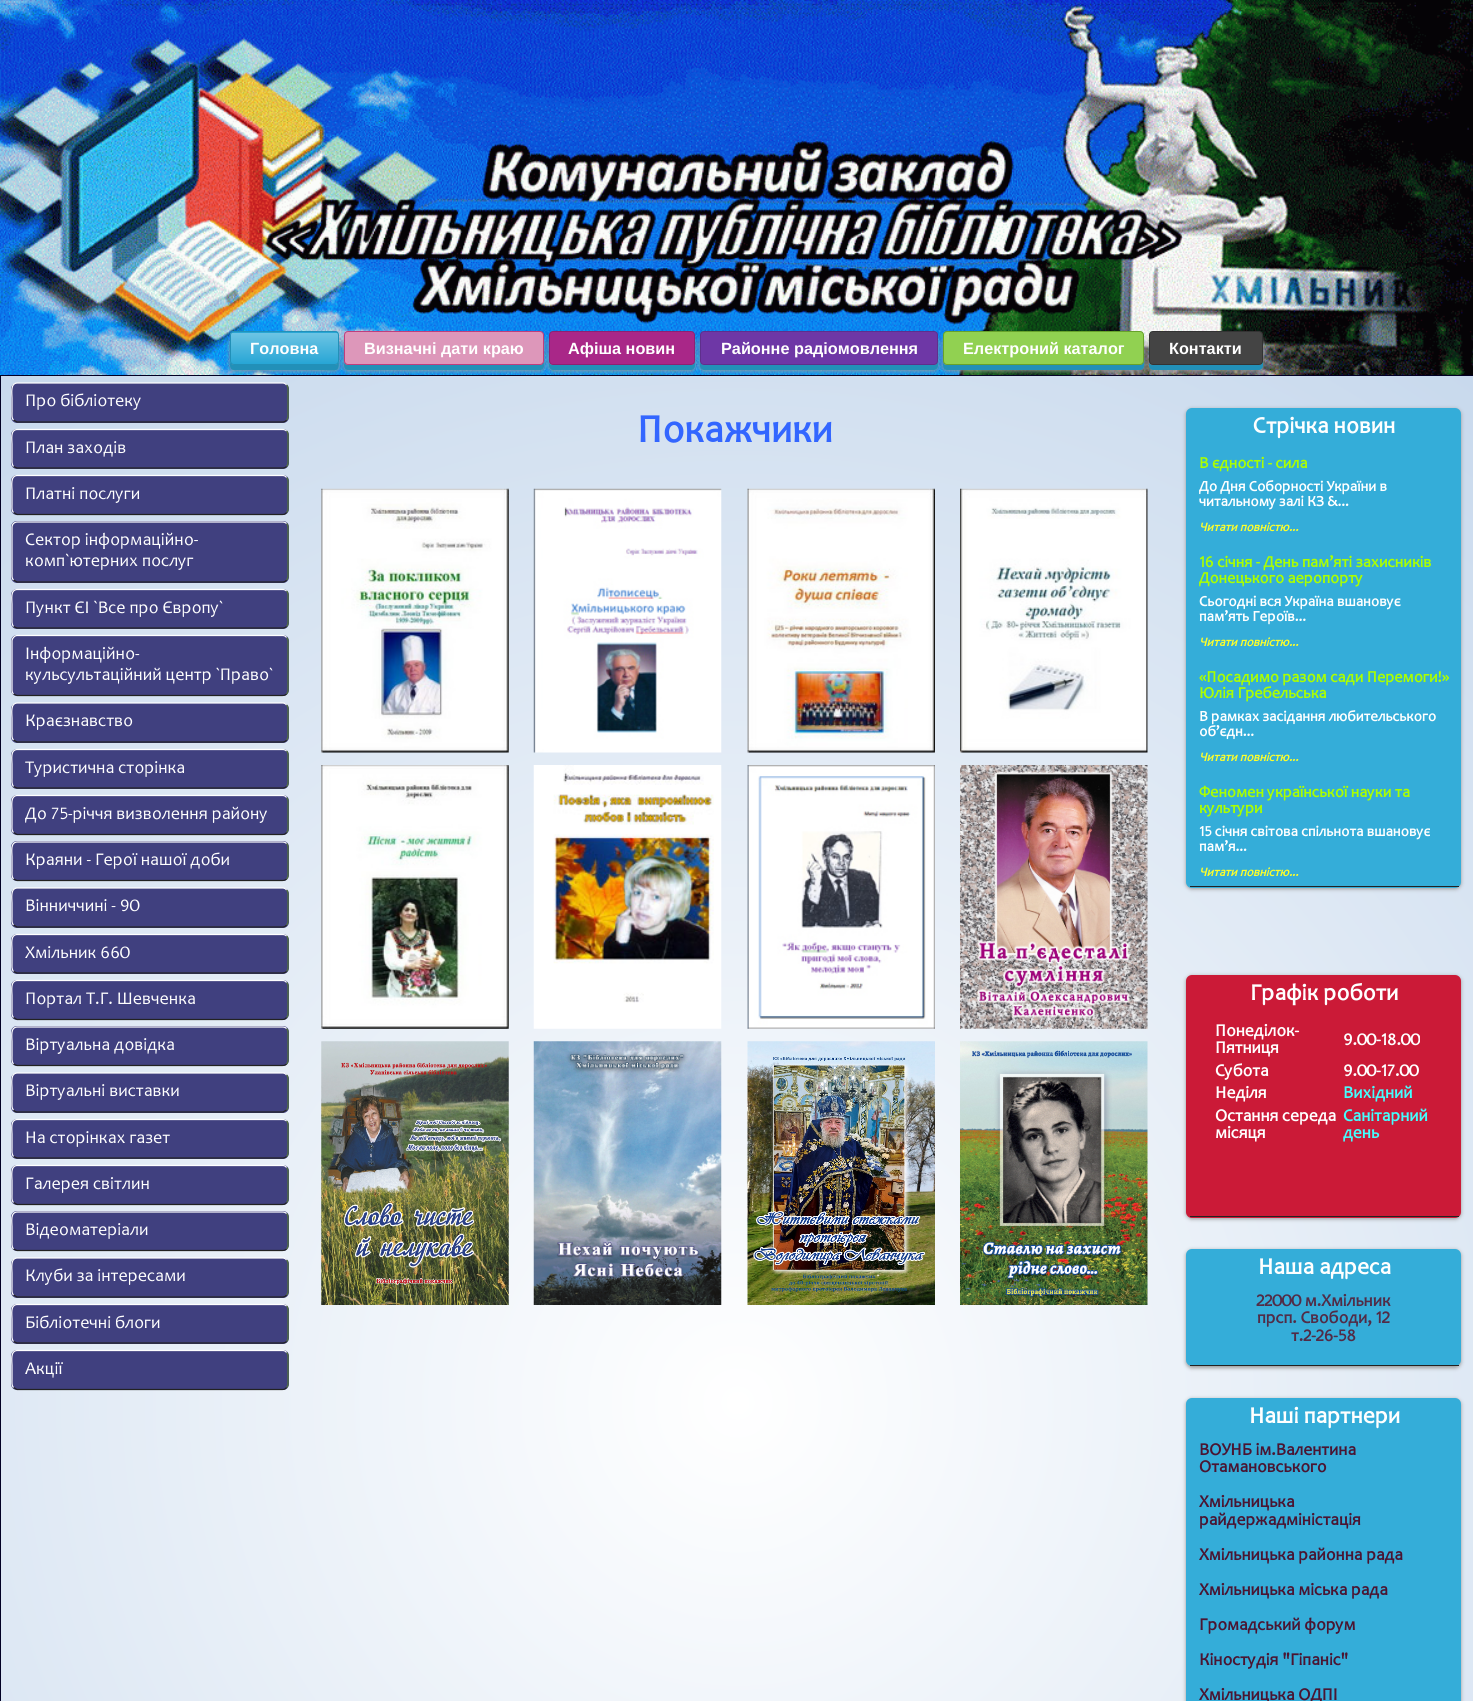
import math
import cairo

surface = cairo.ImageSurface(cairo.Format.RGB24, 1473, 1701)
ctx = cairo.Context(surface)
options = cairo.FontOptions()
options.set_hint_metrics(cairo.HintMetrics.OFF)
options.set_hint_style(cairo.HintStyle.NONE)
ctx.set_font_options(options)
ctx.set_miter_limit(4)


def ink(r, g, b):
    ctx.set_source_rgb(r / 255, g / 255, b / 255)


def write(x, y, s, family, size, color, bold=False, italic=False):
    ctx.select_font_face(family, cairo.FontSlant.ITALIC if italic else cairo.FontSlant.NORMAL, cairo.FontWeight.BOLD if bold else cairo.FontWeight.NORMAL)
    ctx.set_font_size(size)
    ink(*color)
    ctx.move_to(x, y)
    ctx.show_text(s)


def block(x, y, w, h, *color):
    ink(*color)
    ctx.rectangle(x, y, w, h)
    ctx.fill()


def round_path(x, y, w, h, r):
    ctx.new_sub_path()
    for i, (u, v) in enumerate([(x + w - r, y + h - r), (x + r, y + h - r), (x + r, y + r), (x + w - r, y + r)]):
        ctx.arc(u, v, r, i * math.pi / 2, (i + 1) * math.pi / 2)
    ctx.close_path()


def blur_box(x, y, w, h, r, blur, alpha):
    ctx.push_group_with_content(cairo.Content.ALPHA)
    ctx.set_operator(cairo.Operator.SOURCE)
    for i in range(15, -16, -2):
        e = blur * i / 6
        if min(w, h) + 2 * e > 0:
            ctx.set_source_rgba(0, 0, 0, alpha * math.erfc((i - 1) / 8.5) / 2)
            round_path(x - e, y - e, w + 2 * e, h + 2 * e, max(0, min(r + e + blur * .6, min(w, h) / 2 + e)))
            ctx.fill()
    ctx.mask(ctx.pop_group())


def paste(path, x, y, w, h):
    ctx.save()
    ctx.set_source_surface(cairo.ImageSurface.create_from_png(path), x, y)
    ctx.rectangle(x, y, w, h)
    ctx.fill()
    ctx.restore()


s1 = dict(family="Liberation Sans", size=16.25, color=(255, 255, 255), bold=True)
s2 = dict(family="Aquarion", size=18, color=(255, 255, 255))
s3 = dict(family="Aquarion", size=40, color=(51, 102, 255), bold=True)
s4 = dict(family="Aquarion", size=23.5, color=(255, 255, 255), bold=True)
s5 = dict(family="Aquarion", size=16.25, color=(171, 255, 0), bold=True)
s6 = dict(family="Aquarion", size=15, color=(255, 255, 255), bold=True)
s7 = dict(family="Aquarion", size=12.5, color=(255, 255, 41), bold=True, italic=True)
s8 = dict(family="Aquarion", size=17.5, color=(255, 255, 255), bold=True)
s9 = dict(family="Aquarion", size=17.5, color=(67, 255, 255), bold=True)
s10 = dict(family="Aquarion", size=17.5, color=(81, 44, 71), bold=True)
s11 = dict(family="Aquarion", size=17.5, color=(74, 21, 50), bold=True)

ink(255, 255, 255)
ctx.paint()
paste("pic1.png", 0, 0, 1473, 375)
gradient = cairo.RadialGradient(738, 1403, 0, 738, 1403, 1264)
gradient.add_color_stop_rgba(0, 1, 1, 1, 1)
gradient.add_color_stop_rgba(1, 0.784, 0.851, 0.929, 1)
ctx.set_source(gradient)
ctx.rectangle(1, 376, 1472, 1325)
ctx.fill()
ctx.rectangle(0.5, 375.5, 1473, 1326)
ink(2, 0, 36)
ctx.set_line_width(1)
ctx.stroke()
ink(153, 153, 153)
blur_box(230, 338, 109, 33, 4, 2.5, 1)
ink(34, 144, 184)
ctx.new_path()
ctx.move_to(230, 361)
ctx.curve_to(230, 364, 229, 370, 234, 370)
ctx.line_to(318, 370)
ctx.curve_to(339, 370, 339, 374, 339, 357)
ctx.line_to(339, 339)
ctx.line_to(339, 361)
ctx.curve_to(339, 363, 337, 365, 335, 365)
ctx.line_to(234, 365)
ctx.curve_to(232, 365, 230, 363, 230, 361)
ctx.close_path()
ctx.fill()
ctx.save()
round_path(230, 331, 109, 34, 4)
ctx.clip()
gradient = cairo.LinearGradient(231, 301, 231, 333)
gradient.add_color_stop_rgba(0, 0.427, 0.769, 0.894, 1)
gradient.add_color_stop_rgba(1, 0.153, 0.651, 0.835, 1)
ctx.set_source(gradient)
ctx.rectangle(230, 331, 109, 2)
ctx.fill()
gradient = cairo.LinearGradient(231, 333, 231, 364)
gradient.add_color_stop_rgba(0, 0.427, 0.769, 0.894, 1)
gradient.add_color_stop_rgba(1, 0.153, 0.651, 0.835, 1)
ctx.set_source(gradient)
ctx.rectangle(230, 333, 109, 31)
ctx.fill()
ctx.restore()
round_path(230.5, 331.5, 108, 33, 3.5)
ctx.stroke()
write(250, 354, "Головна", **s1)
ink(153, 153, 153)
blur_box(344, 338, 200, 33, 4, 2.5, 1)
ink(34, 144, 184)
ctx.new_path()
ctx.move_to(344, 363)
ctx.curve_to(344, 366, 344, 370, 348, 370)
ctx.line_to(540, 370)
ctx.curve_to(546, 370, 544, 361, 544, 357)
ctx.line_to(544, 339)
ctx.line_to(544, 361)
ctx.curve_to(544, 363, 542, 365, 540, 365)
ctx.line_to(348, 365)
ctx.curve_to(346, 365, 345, 364, 344, 363)
ctx.close_path()
ctx.fill()
ink(221, 151, 186)
round_path(344.5, 331.5, 199, 33, 3.5)
ctx.fill_preserve()
ink(191, 62, 125)
ctx.stroke()
write(364, 354, "Визначні дати краю", **s1)
ink(153, 153, 153)
blur_box(549, 338, 146, 33, 4, 2.5, 1)
ink(34, 144, 184)
ctx.new_path()
ctx.move_to(549, 363)
ctx.line_to(549, 366)
ctx.curve_to(549, 368, 551, 370, 553, 370)
ctx.line_to(691, 370)
ctx.curve_to(693, 370, 695, 368, 695, 366)
ctx.line_to(695, 361)
ctx.curve_to(695, 363, 693, 365, 691, 365)
ctx.line_to(552, 365)
ctx.curve_to(551, 365, 550, 364, 549, 363)
ctx.close_path()
ctx.fill()
ink(169, 39, 136)
round_path(549.5, 331.5, 145, 33, 3.5)
ctx.fill_preserve()
ink(141, 33, 114)
ctx.stroke()
write(568, 354, "Афіша новин", **s1)
ink(153, 153, 153)
blur_box(700, 338, 238, 33, 4, 2.5, 1)
ink(34, 144, 184)
ctx.new_path()
ctx.move_to(700, 361)
ctx.line_to(700, 366)
ctx.curve_to(700, 368, 702, 370, 704, 370)
ctx.line_to(934, 370)
ctx.curve_to(936, 370, 938, 368, 938, 366)
ctx.line_to(938, 340)
ctx.line_to(938, 338)
ctx.line_to(938, 361)
ctx.curve_to(938, 363, 936, 365, 934, 365)
ctx.line_to(704, 365)
ctx.curve_to(702, 365, 700, 363, 700, 361)
ctx.close_path()
ctx.fill()
ink(110, 55, 166)
round_path(700.5, 331.5, 237, 33, 3.5)
ctx.fill_preserve()
ink(94, 47, 140)
ctx.stroke()
write(721, 354, "Районне радіомовлення", **s1)
ink(153, 153, 153)
blur_box(943, 338, 201, 33, 4, 2.5, 1)
ink(34, 144, 184)
ctx.new_path()
ctx.move_to(943, 363)
ctx.curve_to(943, 366, 943, 370, 947, 370)
ctx.line_to(1140, 370)
ctx.curve_to(1146, 370, 1144, 361, 1144, 357)
ctx.line_to(1144, 339)
ctx.line_to(1144, 361)
ctx.curve_to(1144, 363, 1142, 365, 1140, 365)
ctx.line_to(946, 365)
ctx.curve_to(945, 365, 944, 364, 943, 363)
ctx.close_path()
ctx.fill()
ink(145, 209, 81)
round_path(943.5, 331.5, 200, 33, 3.5)
ctx.fill_preserve()
ink(103, 162, 43)
ctx.stroke()
write(963, 354, "Електроний каталог", **s1)
ink(153, 153, 153)
blur_box(1149, 338, 114, 33, 4, 2.5, 1)
ink(34, 144, 184)
ctx.new_path()
ctx.move_to(1149, 363)
ctx.line_to(1149, 366)
ctx.curve_to(1149, 368, 1151, 370, 1153, 370)
ctx.line_to(1259, 370)
ctx.curve_to(1261, 370, 1263, 368, 1263, 366)
ctx.line_to(1263, 340)
ctx.line_to(1262, 338)
ctx.line_to(1262, 361)
ctx.curve_to(1262, 363, 1261, 365, 1259, 365)
ctx.line_to(1152, 365)
ctx.curve_to(1151, 365, 1150, 364, 1149, 363)
ctx.close_path()
ctx.fill()
ink(68, 68, 68)
round_path(1149.5, 331.5, 113, 33, 3.5)
ctx.fill_preserve()
ink(51, 51, 51)
ctx.stroke()
write(1169, 354, "Контакти", **s1)
ink(64, 64, 127)
round_path(11, 383, 278, 40, 6)
ctx.fill()
ctx.new_path()
ctx.move_to(286.5, 385)
ctx.curve_to(287.5, 386, 288, 387.5, 288, 389)
ctx.line_to(288, 416)
ctx.curve_to(288, 417.5, 287.5, 419, 286.5, 420)
ink(82, 115, 55)
ctx.set_line_width(1.2)
ctx.stroke()
ctx.new_path()
ctx.move_to(286.5, 420)
ctx.curve_to(285.5, 421.5, 284, 422, 282.5, 422)
ctx.line_to(17, 422)
ctx.line_to(13.5, 420)
ink(34, 34, 34)
ctx.stroke()
ctx.new_path()
ctx.move_to(13.5, 420)
ctx.curve_to(11.5, 418, 12, 414.5, 12, 411.5)
ctx.line_to(12, 398)
ctx.curve_to(12, 393.5, 10, 383, 17.5, 383)
ctx.line_to(282.5, 383)
ctx.curve_to(284, 383, 285.5, 383.5, 286.5, 385)
ink(255, 255, 255)
ctx.stroke()
write(25, 406, "Про бібліотеку", **s2)
ink(64, 64, 127)
round_path(11, 429, 278, 40, 6)
ctx.fill()
ctx.new_path()
ctx.move_to(286.5, 431)
ctx.curve_to(287.5, 432, 288, 433.5, 288, 435)
ctx.line_to(288, 462.5)
ctx.curve_to(288, 464, 287.5, 465.5, 286.5, 466.5)
ink(82, 115, 55)
ctx.stroke()
ctx.new_path()
ctx.move_to(286.5, 466.5)
ctx.curve_to(285.5, 467.5, 284, 468, 282.5, 468)
ctx.line_to(17, 468)
ctx.line_to(13.5, 466.5)
ink(34, 34, 34)
ctx.stroke()
ctx.new_path()
ctx.move_to(13.5, 466.5)
ctx.curve_to(11.5, 464, 12, 461, 12, 458)
ctx.line_to(12, 444)
ctx.curve_to(12, 439.5, 10, 429.5, 17.5, 429.5)
ctx.line_to(282.5, 429.5)
ctx.curve_to(284, 429.5, 285.5, 430, 286.5, 431)
ink(255, 255, 255)
ctx.stroke()
write(25, 453, "План заходів", **s2)
ink(64, 64, 127)
round_path(11, 475, 278, 40, 6)
ctx.fill()
ctx.new_path()
ctx.move_to(286.5, 477.5)
ctx.curve_to(287.5, 478.5, 288, 480, 288, 481)
ctx.line_to(288, 509)
ctx.curve_to(288, 510, 287.5, 511.5, 286.5, 512.5)
ink(82, 115, 55)
ctx.stroke()
ctx.new_path()
ctx.move_to(286.5, 512.5)
ctx.curve_to(285.5, 514, 284, 514.5, 282.5, 514.5)
ctx.line_to(17, 514.5)
ctx.line_to(13.5, 512.5)
ink(34, 34, 34)
ctx.stroke()
ctx.new_path()
ctx.move_to(13.5, 512.5)
ctx.curve_to(11.5, 510.5, 12, 507, 12, 504)
ctx.line_to(12, 490.5)
ctx.curve_to(12, 486, 10, 475.5, 17.5, 475.5)
ctx.line_to(282.5, 475.5)
ctx.curve_to(284, 475.5, 285.5, 476, 286.5, 477.5)
ink(255, 255, 255)
ctx.stroke()
write(25, 499, "Платні послуги", **s2)
ink(64, 64, 127)
round_path(11, 521, 278, 62, 6)
ctx.fill()
ctx.new_path()
ctx.move_to(286.5, 523.5)
ctx.curve_to(287.5, 524.5, 288, 526, 288, 527.5)
ctx.line_to(288, 576)
ctx.curve_to(288, 577.5, 287.5, 579, 286.5, 580)
ink(82, 115, 55)
ctx.stroke()
ctx.new_path()
ctx.move_to(286.5, 580)
ctx.curve_to(285.5, 581.5, 284, 582, 282.5, 582)
ctx.line_to(17, 582)
ctx.line_to(13.5, 580)
ink(34, 34, 34)
ctx.stroke()
ctx.new_path()
ctx.move_to(13.5, 580)
ctx.curve_to(12.5, 579, 12, 577.5, 12, 576)
ctx.line_to(12, 527.5)
ctx.curve_to(12, 526, 12.5, 524.5, 13.5, 523.5)
ctx.curve_to(14.5, 522.5, 16, 522, 17.5, 522)
ctx.line_to(282.5, 522)
ctx.curve_to(284, 522, 285.5, 522.5, 286.5, 523.5)
ink(255, 255, 255)
ctx.stroke()
write(25, 545, "Сектор інформаційно-", **s2)
write(25, 566, "комп`ютерних послуг", **s2)
ink(64, 64, 127)
round_path(11, 589, 278, 40, 6)
ctx.fill()
ctx.new_path()
ctx.move_to(286.5, 591)
ctx.curve_to(287.5, 592, 288, 593.5, 288, 595)
ctx.line_to(288, 622.5)
ctx.curve_to(288, 624, 287.5, 625.5, 286.5, 626.5)
ink(82, 115, 55)
ctx.stroke()
ctx.new_path()
ctx.move_to(286.5, 626.5)
ctx.curve_to(285.5, 627.5, 284, 628, 282.5, 628)
ctx.line_to(17, 628)
ctx.line_to(13.5, 626.5)
ink(34, 34, 34)
ctx.stroke()
ctx.new_path()
ctx.move_to(13.5, 626.5)
ctx.curve_to(11.5, 624, 12, 621, 12, 618)
ctx.line_to(12, 604)
ctx.curve_to(12, 599.5, 10, 589.5, 17.5, 589.5)
ctx.line_to(282.5, 589.5)
ctx.curve_to(284, 589.5, 285.5, 590, 286.5, 591)
ink(255, 255, 255)
ctx.stroke()
write(25, 613, "Пункт ЄІ `Все про Європу`", **s2)
ink(64, 64, 127)
round_path(11, 635, 278, 61, 6)
ctx.fill()
ctx.new_path()
ctx.move_to(286.5, 637.5)
ctx.curve_to(287.5, 638.5, 288, 640, 288, 641)
ctx.line_to(288, 690)
ctx.curve_to(288, 691.5, 287.5, 693, 286.5, 694)
ink(82, 115, 55)
ctx.stroke()
ctx.new_path()
ctx.move_to(286.5, 694)
ctx.curve_to(285.5, 695, 284, 695.5, 282.5, 695.5)
ctx.line_to(17, 695.5)
ctx.line_to(13.5, 694)
ink(34, 34, 34)
ctx.stroke()
ctx.new_path()
ctx.move_to(13.5, 694)
ctx.curve_to(12.5, 693, 12, 691.5, 12, 690)
ctx.line_to(12, 641)
ctx.curve_to(12, 640, 12.5, 638.5, 13.5, 637.5)
ctx.curve_to(14.5, 636, 16, 635.5, 17.5, 635.5)
ctx.line_to(282.5, 635.5)
ctx.curve_to(284, 635.5, 285.5, 636, 286.5, 637.5)
ink(255, 255, 255)
ctx.stroke()
write(25, 659, "Інформаційно-", **s2)
write(25, 680, "кульсультаційний центр `Право`", **s2)
ink(64, 64, 127)
round_path(11, 703, 278, 40, 6)
ctx.fill()
ctx.new_path()
ctx.move_to(286.5, 705)
ctx.curve_to(287.5, 706, 288, 707.5, 288, 709)
ctx.line_to(288, 736)
ctx.curve_to(288, 737.5, 287.5, 739, 286.5, 740)
ink(82, 115, 55)
ctx.stroke()
ctx.new_path()
ctx.move_to(286.5, 740)
ctx.curve_to(285.5, 741.5, 284, 742, 282.5, 742)
ctx.line_to(17, 742)
ctx.line_to(13.5, 740)
ink(34, 34, 34)
ctx.stroke()
ctx.new_path()
ctx.move_to(13.5, 740)
ctx.curve_to(11.5, 738, 12, 734.5, 12, 731.5)
ctx.line_to(12, 718)
ctx.curve_to(12, 713.5, 10, 703, 17.5, 703)
ctx.line_to(282.5, 703)
ctx.curve_to(284, 703, 285.5, 703.5, 286.5, 705)
ink(255, 255, 255)
ctx.stroke()
write(25, 726, "Краєзнавство", **s2)
ink(64, 64, 127)
round_path(11, 749, 278, 40, 6)
ctx.fill()
ctx.new_path()
ctx.move_to(286.5, 751)
ctx.curve_to(287.5, 752, 288, 753.5, 288, 755)
ctx.line_to(288, 782.5)
ctx.curve_to(288, 784, 287.5, 785.5, 286.5, 786.5)
ink(82, 115, 55)
ctx.stroke()
ctx.new_path()
ctx.move_to(286.5, 786.5)
ctx.curve_to(285.5, 787.5, 284, 788, 282.5, 788)
ctx.line_to(17, 788)
ctx.line_to(13.5, 786.5)
ink(34, 34, 34)
ctx.stroke()
ctx.new_path()
ctx.move_to(13.5, 786.5)
ctx.curve_to(11.5, 784, 12, 781, 12, 778)
ctx.line_to(12, 764)
ctx.curve_to(12, 759.5, 10, 749.5, 17.5, 749.5)
ctx.line_to(282.5, 749.5)
ctx.curve_to(284, 749.5, 285.5, 750, 286.5, 751)
ink(255, 255, 255)
ctx.stroke()
write(25, 773, "Туристична сторінка", **s2)
ink(64, 64, 127)
round_path(11, 795, 278, 40, 6)
ctx.fill()
ctx.new_path()
ctx.move_to(286.5, 797.5)
ctx.curve_to(287.5, 798.5, 288, 800, 288, 801)
ctx.line_to(288, 829)
ctx.curve_to(288, 830, 287.5, 831.5, 286.5, 832.5)
ink(82, 115, 55)
ctx.stroke()
ctx.new_path()
ctx.move_to(286.5, 832.5)
ctx.curve_to(285.5, 834, 284, 834.5, 282.5, 834.5)
ctx.line_to(17, 834.5)
ctx.line_to(13.5, 832.5)
ink(34, 34, 34)
ctx.stroke()
ctx.new_path()
ctx.move_to(13.5, 832.5)
ctx.curve_to(11.5, 830.5, 12, 827, 12, 824)
ctx.line_to(12, 810.5)
ctx.curve_to(12, 806, 10, 795.5, 17.5, 795.5)
ctx.line_to(282.5, 795.5)
ctx.curve_to(284, 795.5, 285.5, 796, 286.5, 797.5)
ink(255, 255, 255)
ctx.stroke()
write(25, 819, "До 75-річчя визволення району", **s2)
ink(64, 64, 127)
round_path(11, 841, 278, 40, 6)
ctx.fill()
ctx.new_path()
ctx.move_to(286.5, 843.5)
ctx.curve_to(287.5, 844.5, 288, 846, 288, 847.5)
ctx.line_to(288, 875)
ctx.curve_to(288, 876.5, 287.5, 878, 286.5, 879)
ink(82, 115, 55)
ctx.stroke()
ctx.new_path()
ctx.move_to(286.5, 879)
ctx.curve_to(285.5, 880, 284, 880.5, 282.5, 880.5)
ctx.line_to(17, 880.5)
ctx.line_to(13.5, 879)
ink(34, 34, 34)
ctx.stroke()
ctx.new_path()
ctx.move_to(13.5, 879)
ctx.curve_to(11.5, 876.5, 12, 873.5, 12, 870.5)
ctx.line_to(12, 856.5)
ctx.curve_to(12, 852, 10, 842, 17.5, 842)
ctx.line_to(282.5, 842)
ctx.curve_to(284, 842, 285.5, 842.5, 286.5, 843.5)
ink(255, 255, 255)
ctx.stroke()
write(25, 865, "Краяни - Герої нашої доби", **s2)
ink(64, 64, 127)
round_path(11, 888, 278, 40, 6)
ctx.fill()
ctx.new_path()
ctx.move_to(286.5, 890)
ctx.curve_to(287.5, 891, 288, 892.5, 288, 894)
ctx.line_to(288, 921)
ctx.curve_to(288, 922.5, 287.5, 924, 286.5, 925)
ink(82, 115, 55)
ctx.stroke()
ctx.new_path()
ctx.move_to(286.5, 925)
ctx.curve_to(285.5, 926.5, 284, 927, 282.5, 927)
ctx.line_to(17, 927)
ctx.line_to(13.5, 925)
ink(34, 34, 34)
ctx.stroke()
ctx.new_path()
ctx.move_to(13.5, 925)
ctx.curve_to(11.5, 923, 12, 919.5, 12, 916.5)
ctx.line_to(12, 903)
ctx.curve_to(12, 898.5, 10, 888, 17.5, 888)
ctx.line_to(282.5, 888)
ctx.curve_to(284, 888, 285.5, 888.5, 286.5, 890)
ink(255, 255, 255)
ctx.stroke()
write(25, 911, "Вінниччині - 90", **s2)
ink(64, 64, 127)
round_path(11, 934, 278, 40, 6)
ctx.fill()
ctx.new_path()
ctx.move_to(286.5, 936)
ctx.curve_to(287.5, 937, 288, 938.5, 288, 940)
ctx.line_to(288, 967.5)
ctx.curve_to(288, 969, 287.5, 970.5, 286.5, 971.5)
ink(82, 115, 55)
ctx.stroke()
ctx.new_path()
ctx.move_to(286.5, 971.5)
ctx.curve_to(285.5, 972.5, 284, 973, 282.5, 973)
ctx.line_to(17, 973)
ctx.line_to(13.5, 971.5)
ink(34, 34, 34)
ctx.stroke()
ctx.new_path()
ctx.move_to(13.5, 971.5)
ctx.curve_to(11.5, 969, 12, 966, 12, 963)
ctx.line_to(12, 949)
ctx.curve_to(12, 944.5, 10, 934.5, 17.5, 934.5)
ctx.line_to(282.5, 934.5)
ctx.curve_to(284, 934.5, 285.5, 935, 286.5, 936)
ink(255, 255, 255)
ctx.stroke()
write(25, 958, "Хмільник 660", **s2)
ink(64, 64, 127)
round_path(11, 980, 278, 40, 6)
ctx.fill()
ctx.new_path()
ctx.move_to(286.5, 982.5)
ctx.curve_to(287.5, 983.5, 288, 985, 288, 986)
ctx.line_to(288, 1014)
ctx.curve_to(288, 1015, 287.5, 1016.5, 286.5, 1017.5)
ink(82, 115, 55)
ctx.stroke()
ctx.new_path()
ctx.move_to(286.5, 1017.5)
ctx.curve_to(285.5, 1019, 284, 1019.5, 282.5, 1019.5)
ctx.line_to(17, 1019.5)
ctx.line_to(13.5, 1017.5)
ink(34, 34, 34)
ctx.stroke()
ctx.new_path()
ctx.move_to(13.5, 1017.5)
ctx.curve_to(11.5, 1015.5, 12, 1012, 12, 1009)
ctx.line_to(12, 995.5)
ctx.curve_to(12, 991, 10, 980.5, 17.5, 980.5)
ctx.line_to(282.5, 980.5)
ctx.curve_to(284, 980.5, 285.5, 981, 286.5, 982.5)
ink(255, 255, 255)
ctx.stroke()
write(25, 1004, "Портал Т.Г. Шевченка", **s2)
ink(64, 64, 127)
round_path(11, 1026, 278, 40, 6)
ctx.fill()
ctx.new_path()
ctx.move_to(286.5, 1028.5)
ctx.curve_to(287.5, 1029.5, 288, 1031, 288, 1032.5)
ctx.line_to(288, 1060)
ctx.curve_to(288, 1061.5, 287.5, 1063, 286.5, 1064)
ink(82, 115, 55)
ctx.stroke()
ctx.new_path()
ctx.move_to(286.5, 1064)
ctx.curve_to(285.5, 1065, 284, 1065.5, 282.5, 1065.5)
ctx.line_to(17, 1065.5)
ctx.line_to(13.5, 1064)
ink(34, 34, 34)
ctx.stroke()
ctx.new_path()
ctx.move_to(13.5, 1064)
ctx.curve_to(11.5, 1061.5, 12, 1058.5, 12, 1055.5)
ctx.line_to(12, 1041.5)
ctx.curve_to(12, 1037, 10, 1027, 17.5, 1027)
ctx.line_to(282.5, 1027)
ctx.curve_to(284, 1027, 285.5, 1027.5, 286.5, 1028.5)
ink(255, 255, 255)
ctx.stroke()
write(25, 1050, "Віртуальна довідка", **s2)
ink(64, 64, 127)
round_path(11, 1073, 278, 40, 6)
ctx.fill()
ctx.new_path()
ctx.move_to(286.5, 1075)
ctx.curve_to(287.5, 1076, 288, 1077.5, 288, 1079)
ctx.line_to(288, 1106)
ctx.curve_to(288, 1107.5, 287.5, 1109, 286.5, 1110)
ink(82, 115, 55)
ctx.stroke()
ctx.new_path()
ctx.move_to(286.5, 1110)
ctx.line_to(283, 1112)
ctx.line_to(17.5, 1112)
ctx.curve_to(16, 1112, 14.5, 1111.5, 13.5, 1110)
ink(34, 34, 34)
ctx.stroke()
ctx.new_path()
ctx.move_to(13.5, 1110)
ctx.curve_to(11.5, 1108, 12, 1104.5, 12, 1101.5)
ctx.line_to(12, 1088)
ctx.curve_to(12, 1083.5, 10, 1073, 17.5, 1073)
ctx.line_to(282.5, 1073)
ctx.curve_to(284, 1073, 285.5, 1073.5, 286.5, 1075)
ink(255, 255, 255)
ctx.stroke()
write(25, 1096, "Віртуальні виставки", **s2)
ink(64, 64, 127)
round_path(11, 1119, 278, 40, 6)
ctx.fill()
ctx.new_path()
ctx.move_to(286.5, 1121)
ctx.curve_to(287.5, 1122, 288, 1123.5, 288, 1125)
ctx.line_to(288, 1152.5)
ctx.curve_to(288, 1154, 287.5, 1155.5, 286.5, 1156.5)
ink(82, 115, 55)
ctx.stroke()
ctx.new_path()
ctx.move_to(286.5, 1156.5)
ctx.curve_to(285.5, 1157.5, 284, 1158, 282.5, 1158)
ctx.line_to(17, 1158)
ctx.line_to(13.5, 1156.5)
ink(34, 34, 34)
ctx.stroke()
ctx.new_path()
ctx.move_to(13.5, 1156.5)
ctx.curve_to(11.5, 1154, 12, 1151, 12, 1148)
ctx.line_to(12, 1134)
ctx.curve_to(12, 1129.5, 10, 1119.5, 17.5, 1119.5)
ctx.line_to(282.5, 1119.5)
ctx.curve_to(284, 1119.5, 285.5, 1120, 286.5, 1121)
ink(255, 255, 255)
ctx.stroke()
write(25, 1143, "На сторінках газет", **s2)
ink(64, 64, 127)
round_path(11, 1165, 278, 40, 6)
ctx.fill()
ctx.new_path()
ctx.move_to(286.5, 1167.5)
ctx.curve_to(287.5, 1168.5, 288, 1170, 288, 1171)
ctx.line_to(288, 1199)
ctx.curve_to(288, 1200, 287.5, 1201.5, 286.5, 1202.5)
ink(82, 115, 55)
ctx.stroke()
ctx.new_path()
ctx.move_to(286.5, 1202.5)
ctx.curve_to(285.5, 1204, 284, 1204.5, 282.5, 1204.5)
ctx.line_to(17, 1204.5)
ctx.line_to(13.5, 1202.5)
ink(34, 34, 34)
ctx.stroke()
ctx.new_path()
ctx.move_to(13.5, 1202.5)
ctx.curve_to(11.5, 1200.5, 12, 1197, 12, 1194)
ctx.line_to(12, 1180.5)
ctx.curve_to(12, 1176, 10, 1165.5, 17.5, 1165.5)
ctx.line_to(282.5, 1165.5)
ctx.curve_to(284, 1165.5, 285.5, 1166, 286.5, 1167.5)
ink(255, 255, 255)
ctx.stroke()
write(25, 1189, "Галерея світлин", **s2)
ink(64, 64, 127)
round_path(11, 1211, 278, 40, 6)
ctx.fill()
ctx.new_path()
ctx.move_to(286.5, 1213.5)
ctx.curve_to(287.5, 1214.5, 288, 1216, 288, 1217.5)
ctx.line_to(288, 1245)
ctx.curve_to(288, 1246.5, 287.5, 1248, 286.5, 1249)
ink(82, 115, 55)
ctx.stroke()
ctx.new_path()
ctx.move_to(286.5, 1249)
ctx.curve_to(285.5, 1250, 284, 1250.5, 282.5, 1250.5)
ctx.line_to(17, 1250.5)
ctx.line_to(13.5, 1249)
ink(34, 34, 34)
ctx.stroke()
ctx.new_path()
ctx.move_to(13.5, 1249)
ctx.curve_to(11.5, 1246.5, 12, 1243.5, 12, 1240.5)
ctx.line_to(12, 1226.5)
ctx.curve_to(12, 1222, 10, 1212, 17.5, 1212)
ctx.line_to(282.5, 1212)
ctx.curve_to(284, 1212, 285.5, 1212.5, 286.5, 1213.5)
ink(255, 255, 255)
ctx.stroke()
write(25, 1235, "Відеоматеріали", **s2)
ink(64, 64, 127)
round_path(11, 1258, 278, 40, 6)
ctx.fill()
ctx.new_path()
ctx.move_to(286.5, 1260)
ctx.curve_to(287.5, 1261, 288, 1262.5, 288, 1264)
ctx.line_to(288, 1291)
ctx.curve_to(288, 1292.5, 287.5, 1294, 286.5, 1295)
ink(82, 115, 55)
ctx.stroke()
ctx.new_path()
ctx.move_to(286.5, 1295)
ctx.curve_to(285.5, 1296.5, 284, 1297, 282.5, 1297)
ctx.line_to(17, 1297)
ctx.line_to(13.5, 1295)
ink(34, 34, 34)
ctx.stroke()
ctx.new_path()
ctx.move_to(13.5, 1295)
ctx.curve_to(11.5, 1293, 12, 1289.5, 12, 1286.5)
ctx.line_to(12, 1273)
ctx.curve_to(12, 1268.5, 10, 1258, 17.5, 1258)
ctx.line_to(282.5, 1258)
ctx.curve_to(284, 1258, 285.5, 1258.5, 286.5, 1260)
ink(255, 255, 255)
ctx.stroke()
write(25, 1281, "Клуби за інтересами", **s2)
ink(64, 64, 127)
round_path(11, 1304, 278, 40, 6)
ctx.fill()
ctx.new_path()
ctx.move_to(286.5, 1306)
ctx.curve_to(287.5, 1307, 288, 1308.5, 288, 1310)
ctx.line_to(288, 1337.5)
ctx.curve_to(288, 1339, 287.5, 1340.5, 286.5, 1341.5)
ink(82, 115, 55)
ctx.stroke()
ctx.new_path()
ctx.move_to(286.5, 1341.5)
ctx.curve_to(285.5, 1342.5, 284, 1343, 282.5, 1343)
ctx.line_to(17, 1343)
ctx.line_to(13.5, 1341.5)
ink(34, 34, 34)
ctx.stroke()
ctx.new_path()
ctx.move_to(13.5, 1341.5)
ctx.curve_to(11.5, 1339, 12, 1336, 12, 1333)
ctx.line_to(12, 1319)
ctx.curve_to(12, 1314.5, 10, 1304.5, 17.5, 1304.5)
ctx.line_to(282.5, 1304.5)
ctx.curve_to(284, 1304.5, 285.5, 1305, 286.5, 1306)
ink(255, 255, 255)
ctx.stroke()
write(25, 1328, "Бібліотечні блоги", **s2)
ink(64, 64, 127)
round_path(11, 1350, 278, 40, 6)
ctx.fill()
ctx.new_path()
ctx.move_to(286.5, 1352.5)
ctx.curve_to(287.5, 1353.5, 288, 1355, 288, 1356)
ctx.line_to(288, 1384)
ctx.curve_to(288, 1385, 287.5, 1386.5, 286.5, 1387.5)
ink(82, 115, 55)
ctx.stroke()
ctx.new_path()
ctx.move_to(286.5, 1387.5)
ctx.curve_to(285.5, 1389, 284, 1389.5, 282.5, 1389.5)
ctx.line_to(17, 1389.5)
ctx.line_to(13.5, 1387.5)
ink(34, 34, 34)
ctx.stroke()
ctx.new_path()
ctx.move_to(13.5, 1387.5)
ctx.curve_to(11.5, 1385.5, 12, 1382, 12, 1379)
ctx.line_to(12, 1365.5)
ctx.curve_to(12, 1361, 10, 1350.5, 17.5, 1350.5)
ctx.line_to(282.5, 1350.5)
ctx.curve_to(284, 1350.5, 285.5, 1351, 286.5, 1352.5)
ink(255, 255, 255)
ctx.stroke()
write(25, 1374, "Акції", **s2)
write(637, 442, "Покажчики", **s3)
paste("pic2.png", 321, 488, 188, 265)
paste("pic3.png", 533, 488, 189, 265)
paste("pic4.png", 747, 488, 188, 265)
paste("pic5.png", 960, 488, 188, 265)
paste("pic6.png", 321, 765, 188, 264)
paste("pic7.png", 533, 765, 189, 264)
paste("pic8.png", 747, 765, 188, 264)
paste("pic9.png", 960, 765, 188, 264)
paste("pic10.png", 321, 1041, 188, 264)
paste("pic11.png", 533, 1041, 189, 264)
paste("pic12.png", 747, 1041, 188, 264)
paste("pic13.png", 960, 1041, 188, 264)
ink(153, 153, 153)
blur_box(1186, 409, 275, 480, 6, 2, 1)
ink(52, 173, 217)
round_path(1186, 408, 275, 480, 6)
ctx.fill()
block(1190, 886, 269, 1, 34, 34, 34)
write(1253, 433, "Cтрічка новин", **s4)
write(1199, 468, "В єдності - сила", **s5)
write(1199, 491, "До Дня Соборності України в", **s6)
write(1199, 506, "читальному залі КЗ &...", **s6)
write(1199, 531, "Читати повністю...", **s7)
write(1199, 567, "16 січня - День пам’яті захисників", **s5)
write(1199, 583, "Донецького аеропорту", **s5)
write(1199, 606, "Сьогодні вся Україна вшановує", **s6)
write(1199, 621, "пам’ять Героїв...", **s6)
write(1199, 646, "Читати повністю...", **s7)
write(1199, 682, "«Посадимо разом сади Перемоги!»", **s5)
write(1199, 698, "Юлія Гребельська", **s5)
write(1199, 721, "В рамках засідання любительського", **s6)
write(1199, 736, "об’єдн...", **s6)
write(1199, 761, "Читати повністю...", **s7)
write(1199, 797, "Феномен української науки та", **s5)
write(1199, 813, "культури", **s5)
write(1199, 836, "15 січня світова спільнота вшановує", **s6)
write(1199, 851, "пам’я...", **s6)
write(1199, 876, "Читати повністю...", **s7)
ink(153, 153, 153)
blur_box(1186, 976, 275, 243, 6, 2, 1)
ink(203, 26, 55)
round_path(1186, 975, 275, 243, 6)
ctx.fill()
block(1190, 1216, 269, 1, 34, 34, 34)
write(1250, 1000, "Графік роботи", **s4)
write(1215, 1036, "Понеділок-", **s8)
write(1215, 1053, "Пятниця", **s8)
write(1343, 1045, "9.00-18.00", **s8)
write(1215, 1076, "Субота", **s8)
write(1343, 1076, "9.00-17.00", **s8)
write(1215, 1098, "Неділя", **s8)
write(1343, 1098, "Вихідний", **s9)
write(1215, 1121, "Остання середа", **s8)
write(1215, 1138, "місяця", **s8)
write(1343, 1121, "Санітарний", **s9)
write(1343, 1138, "день", **s9)
ink(153, 153, 153)
blur_box(1186, 1250, 275, 118, 6, 2, 1)
ink(52, 173, 217)
round_path(1186, 1249, 275, 117, 6)
ctx.fill()
block(1190, 1365, 269, 1, 34, 34, 34)
write(1258, 1274, "Наша адреса", **s4)
write(1256, 1306, "22000 м.Хмільник", **s10)
write(1257, 1323, "прсп. Свободи, 12", **s10)
write(1291, 1341, "т.2-26-58", **s10)
ink(153, 153, 153)
blur_box(1186, 1399, 275, 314, 6, 2, 1)
ink(52, 173, 217)
round_path(1186, 1398, 275, 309, 6)
ctx.fill()
write(1249, 1423, "Наші партнери", **s4)
write(1199, 1455, "ВОУНБ ім.Валентина", **s11)
write(1199, 1472, "Отамановського", **s11)
write(1199, 1507, "Хмільницька", **s11)
write(1199, 1525, "райдержадміністація", **s11)
write(1199, 1560, "Хмільницька районна рада", **s11)
write(1199, 1595, "Хмільницька міська рада", **s11)
write(1199, 1630, "Громадський форум", **s11)
write(1199, 1665, "Кіностудія \"Гіпаніс\"", **s11)
write(1199, 1700, "Хмільницька ОДПІ", **s11)
surface.write_to_png("screenshot.png")
